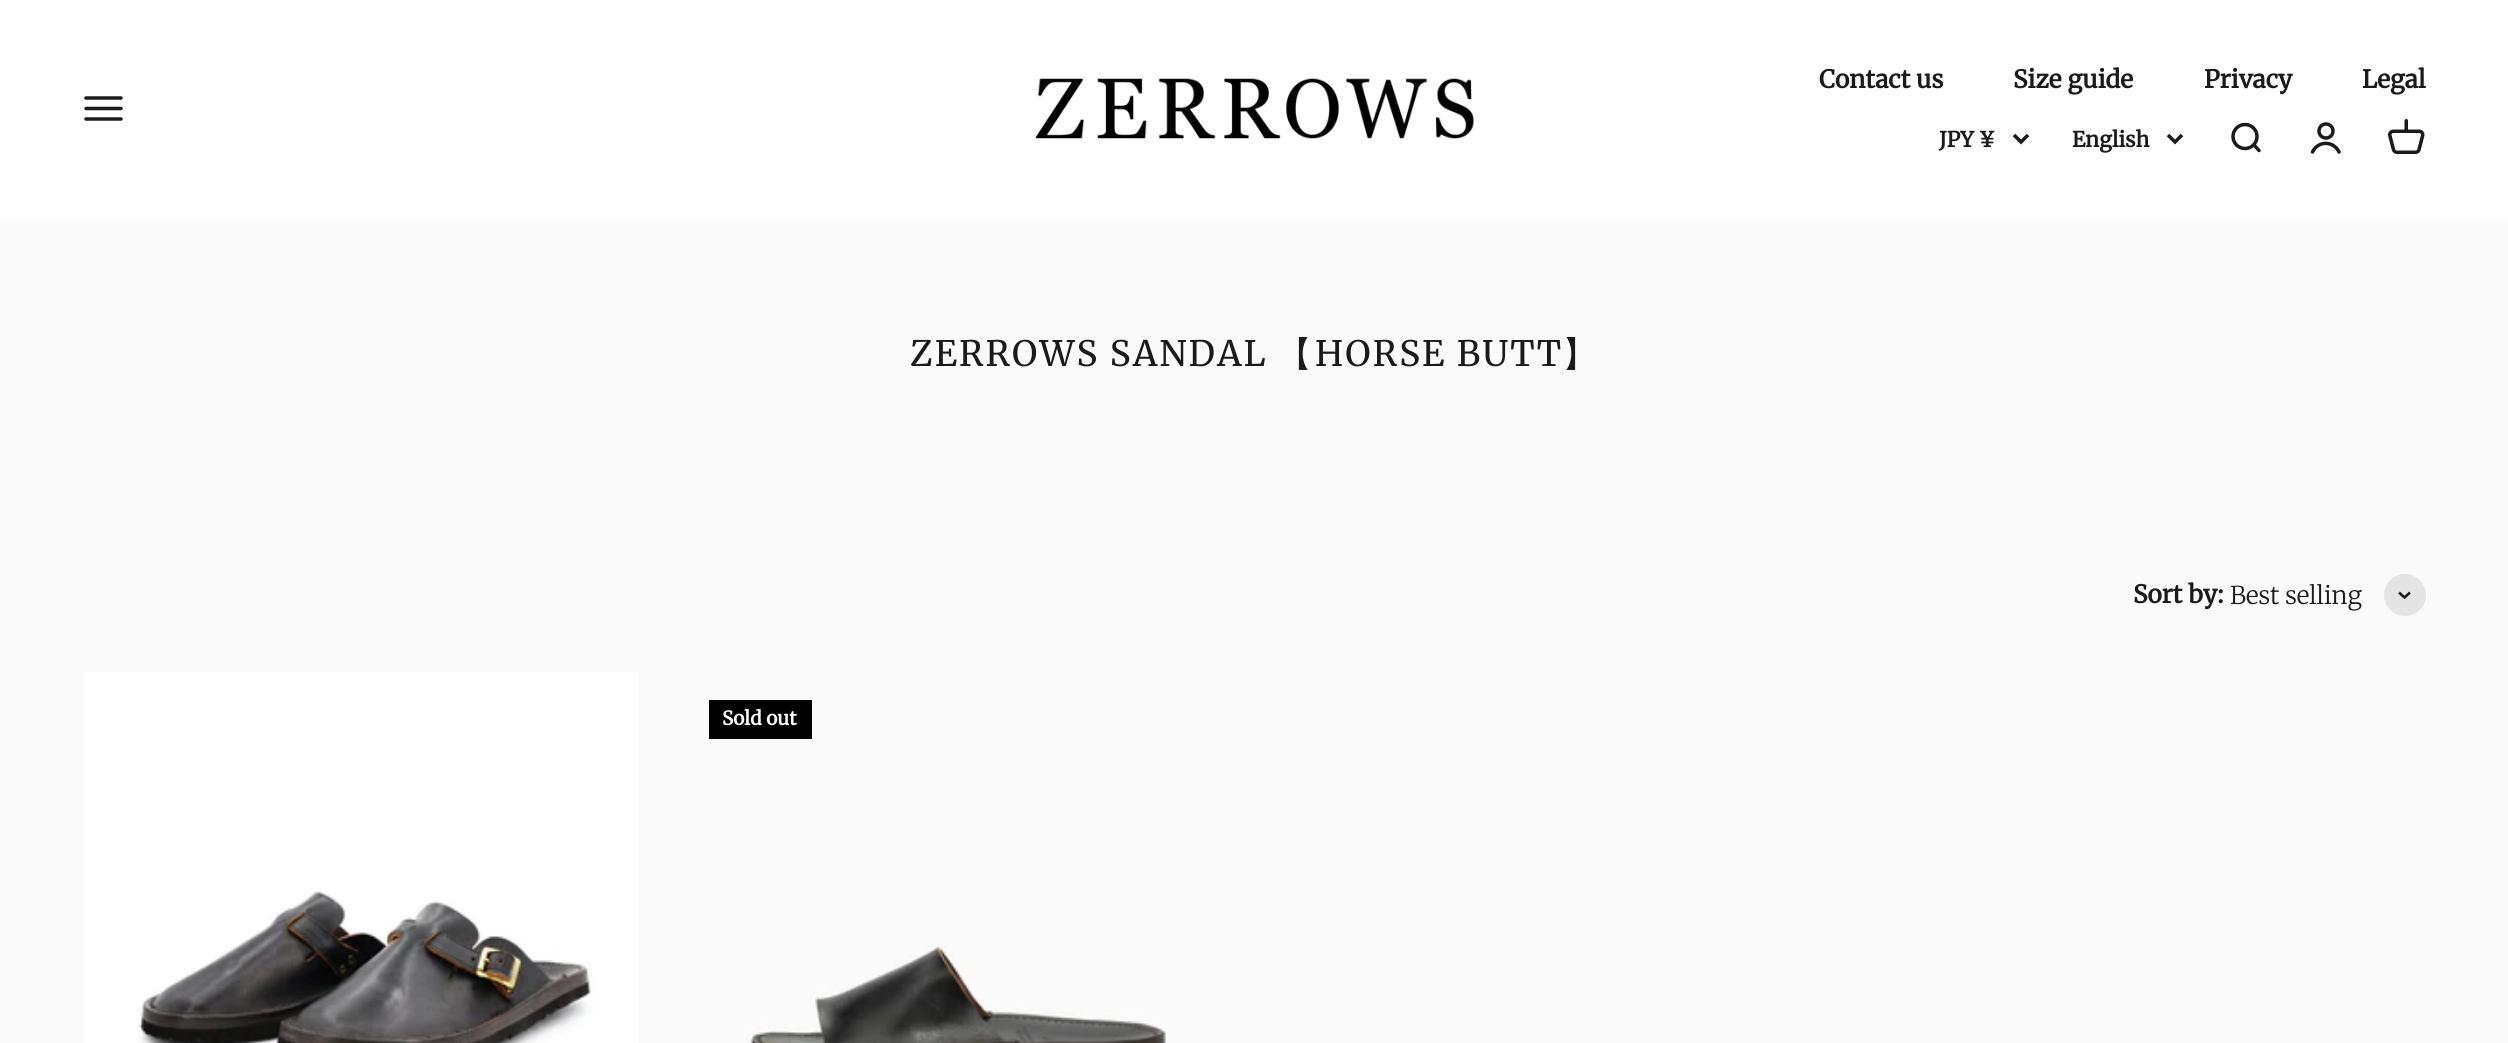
import math
import cairo

surface = cairo.ImageSurface(cairo.Format.RGB24, 2508, 1043)
ctx = cairo.Context(surface)
options = cairo.FontOptions()
options.set_hint_metrics(cairo.HintMetrics.OFF)
options.set_hint_style(cairo.HintStyle.NONE)
ctx.set_font_options(options)
ctx.set_miter_limit(4)


def ink(r, g, b):
    ctx.set_source_rgb(r / 255, g / 255, b / 255)


def write(x, y, s, family, size, color, bold=False, italic=False):
    ctx.select_font_face(family, cairo.FontSlant.ITALIC if italic else cairo.FontSlant.NORMAL, cairo.FontWeight.BOLD if bold else cairo.FontWeight.NORMAL)
    ctx.set_font_size(size)
    ink(*color)
    ctx.move_to(x, y)
    ctx.show_text(s)


def write_spaced(x, y, s, letter, word):
    ctx.move_to(x, y)
    for ch in s:
        ctx.show_text(ch)
        ctx.rel_move_to(letter + word * (ch == ' '), 0)


def block(x, y, w, h, *color):
    ink(*color)
    ctx.rectangle(x, y, w, h)
    ctx.fill()


def paste(path, x, y, w, h):
    ctx.save()
    ctx.set_source_surface(cairo.ImageSurface.create_from_png(path), x, y)
    ctx.rectangle(x, y, w, h)
    ctx.fill()
    ctx.restore()


s1 = dict(family="Merriweather", size=24.5, color=(26, 26, 26), bold=True)
s2 = dict(family="Merriweather", size=21, color=(26, 26, 26), bold=True)
s3 = dict(family="Merriweather Light", size=24.5, color=(26, 26, 26))
s4 = dict(family="Merriweather", size=19, color=(255, 255, 255), bold=True)

ink(250, 250, 250)
ctx.paint()
block(0, 0, 2508, 217, 255, 255, 255)
ctx.new_path()
ctx.move_to(86, 98)
ctx.line_to(121, 98)
ctx.move_to(86, 108.5)
ctx.line_to(121, 108.5)
ctx.move_to(86, 119)
ctx.line_to(121, 119)
ink(26, 26, 26)
ctx.set_line_width(3.5)
ctx.set_line_cap(cairo.LineCap.ROUND)
ctx.stroke()
paste("pic1.png", 1036, 78, 438, 61)
write(1819, 88, "Contact us", **s1)
write(2013, 88, "Size guide", **s1)
write(2204, 88, "Privacy", **s1)
write(2362, 88, "Legal", **s1)
write(1939, 147, "JPY ¥", **s2)
ctx.new_path()
ctx.move_to(2014, 135)
ctx.line_to(2021, 142)
ctx.line_to(2028, 135)
ctx.set_line_cap(cairo.LineCap.BUTT)
ctx.stroke()
write(2072, 147, "English", **s2)
ctx.new_path()
ctx.move_to(2168, 135)
ctx.line_to(2175, 142)
ctx.line_to(2182, 135)
ctx.stroke()
ctx.arc(2245, 136.5, 12, 0, 2 * math.pi)
ctx.stroke()
ctx.new_path()
ctx.move_to(2254, 145)
ctx.line_to(2259, 150.5)
ctx.set_line_cap(cairo.LineCap.ROUND)
ctx.set_line_join(cairo.LineJoin.ROUND)
ctx.stroke()
ctx.arc(2326, 131, 7, 0, 2 * math.pi)
ctx.set_line_cap(cairo.LineCap.BUTT)
ctx.set_line_join(cairo.LineJoin.MITER)
ctx.stroke()
ctx.new_path()
ctx.move_to(2312.5, 152)
ctx.curve_to(2318, 140.5, 2333.5, 140.5, 2339, 152)
ctx.set_line_cap(cairo.LineCap.ROUND)
ctx.stroke()
paste("pic2.png", 2388, 119, 37, 35)
ctx.select_font_face("Merriweather")
ctx.set_font_size(35)
write_spaced(910, 366, "ZERROWS SANDAL", 2.1, 0)
ctx.select_font_face("WenQuanYi Zen Hei Medium")
write_spaced(1277, 366, "【", 2.1, 0)
ctx.select_font_face("Merriweather")
write_spaced(1315, 366, "HORSE BUTT", 2.1, 0)
ctx.select_font_face("WenQuanYi Zen Hei Medium")
write_spaced(1562, 366, "】", 2.1, 0)
write(2133, 603, "Sort by:", **s1)
write(2230, 604, "Best selling", **s3)
ink(228, 228, 228)
ctx.new_path()
ctx.arc(2405, 595, 21, 0, 2 * math.pi)
ctx.fill()
ctx.new_path()
ctx.move_to(2399, 592.5)
ctx.line_to(2404.5, 597.5)
ctx.line_to(2410, 592.5)
ink(26, 26, 26)
ctx.set_line_width(2.6)
ctx.set_line_cap(cairo.LineCap.BUTT)
ctx.stroke()
paste("pic3.png", 84, 672, 554, 371)
block(709, 700, 103, 39, 0, 0, 0)
write(722, 725, "Sold out", **s4)
paste("pic4.png", 750, 942, 417, 101)
surface.write_to_png("screenshot.png")
